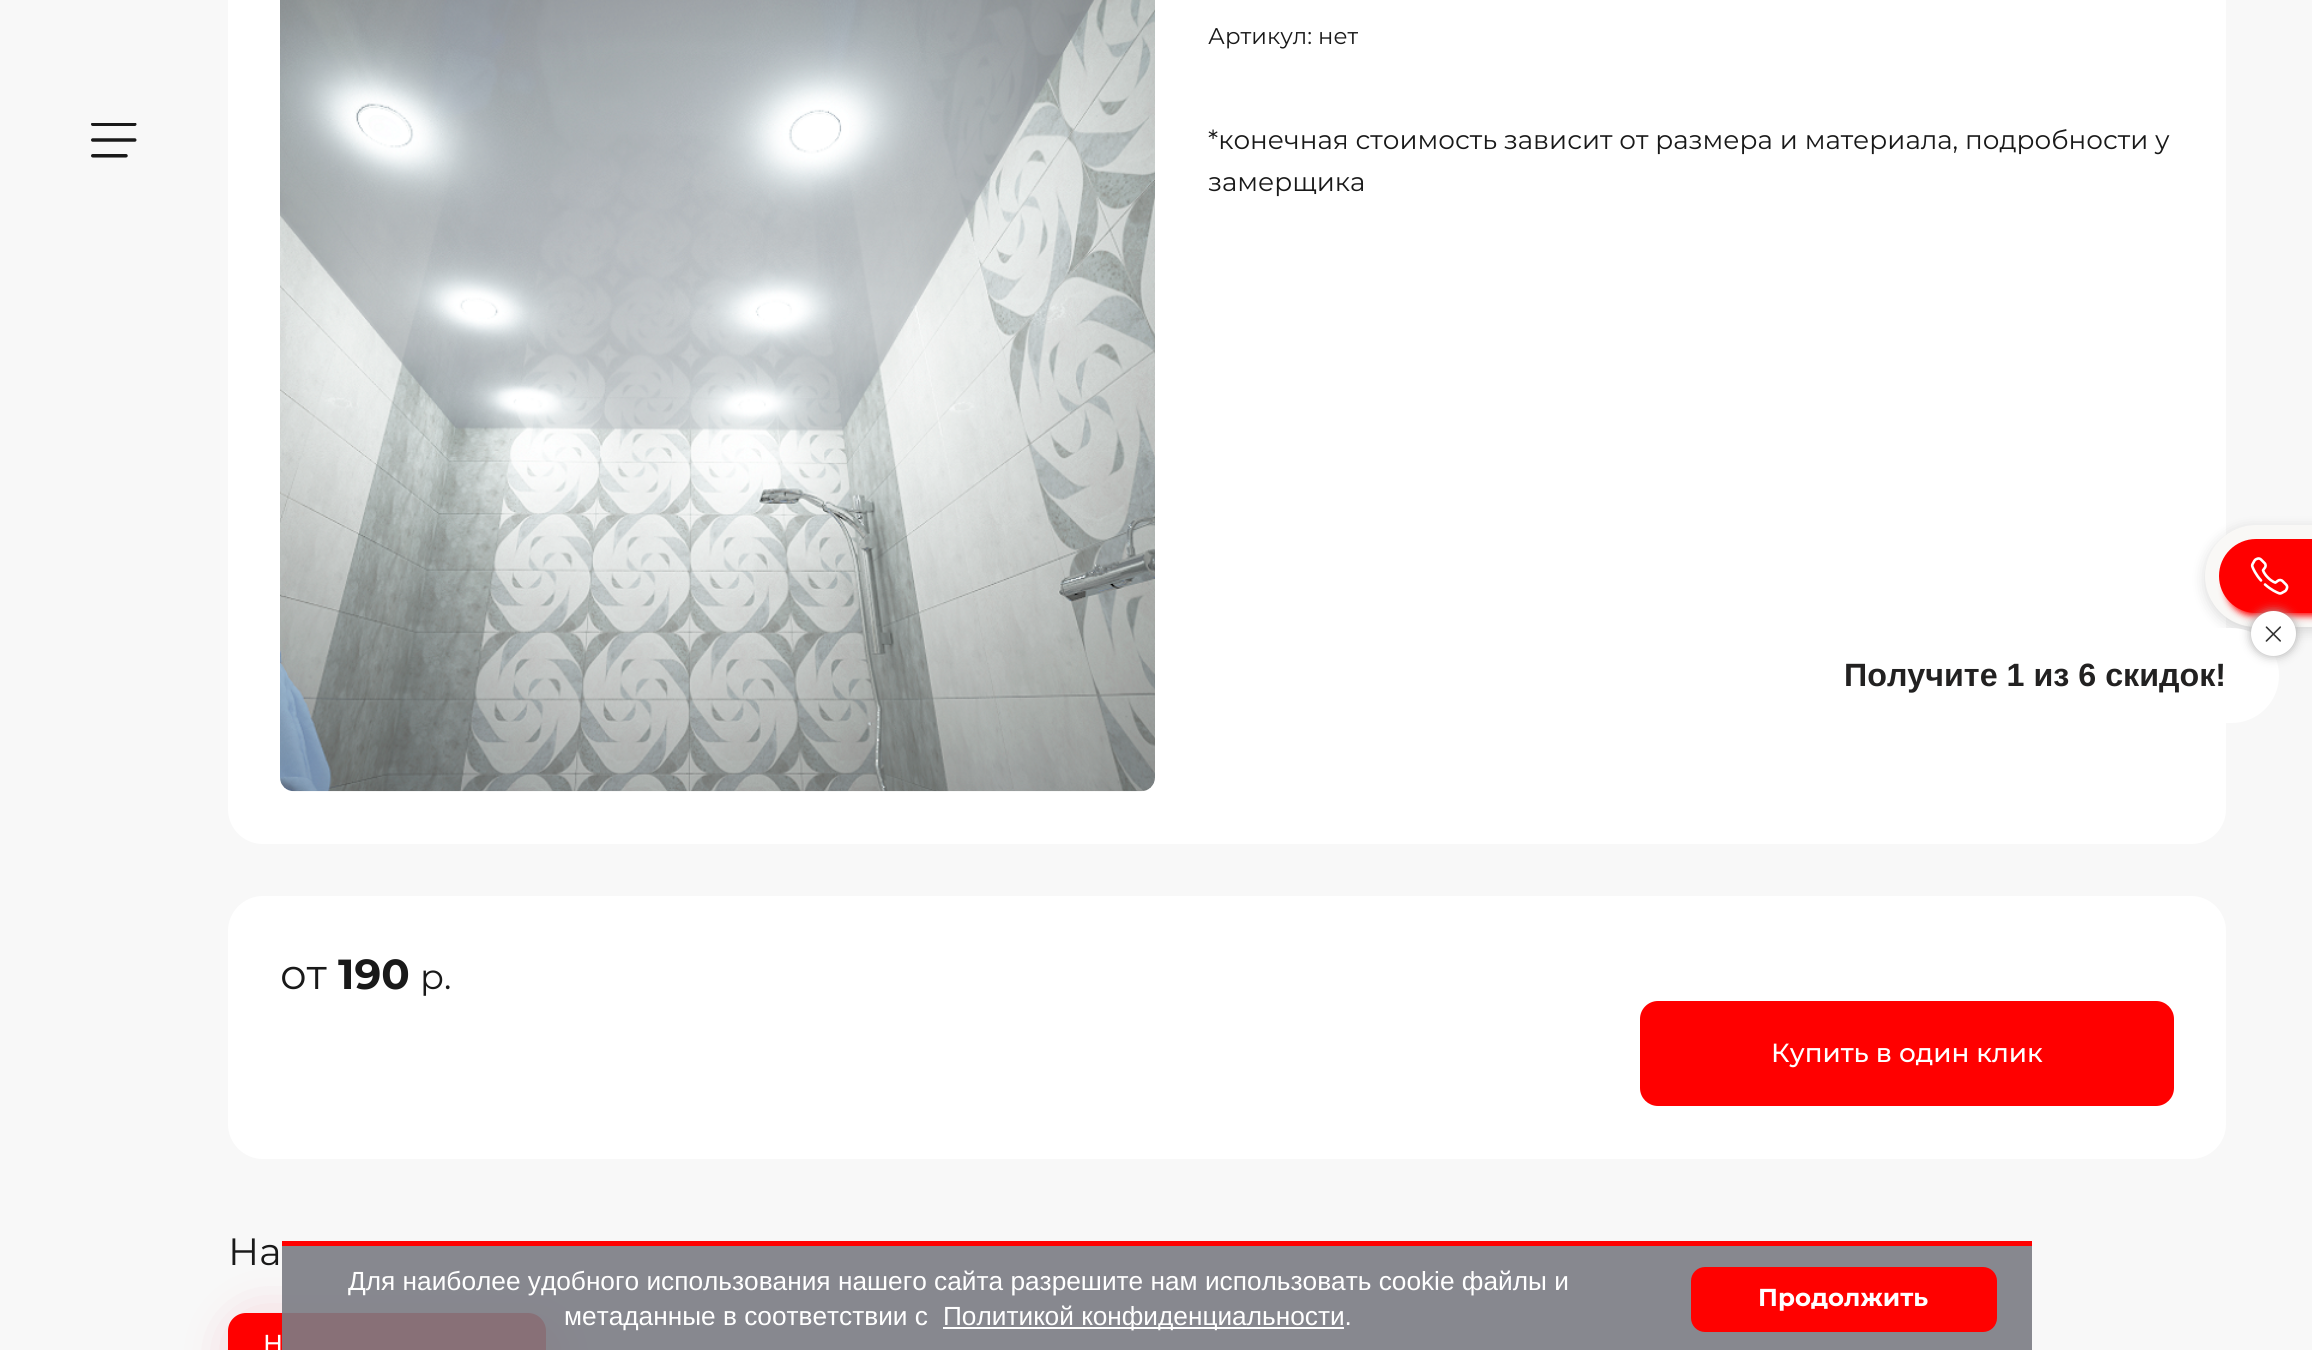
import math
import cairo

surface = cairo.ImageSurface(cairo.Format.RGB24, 2312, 1350)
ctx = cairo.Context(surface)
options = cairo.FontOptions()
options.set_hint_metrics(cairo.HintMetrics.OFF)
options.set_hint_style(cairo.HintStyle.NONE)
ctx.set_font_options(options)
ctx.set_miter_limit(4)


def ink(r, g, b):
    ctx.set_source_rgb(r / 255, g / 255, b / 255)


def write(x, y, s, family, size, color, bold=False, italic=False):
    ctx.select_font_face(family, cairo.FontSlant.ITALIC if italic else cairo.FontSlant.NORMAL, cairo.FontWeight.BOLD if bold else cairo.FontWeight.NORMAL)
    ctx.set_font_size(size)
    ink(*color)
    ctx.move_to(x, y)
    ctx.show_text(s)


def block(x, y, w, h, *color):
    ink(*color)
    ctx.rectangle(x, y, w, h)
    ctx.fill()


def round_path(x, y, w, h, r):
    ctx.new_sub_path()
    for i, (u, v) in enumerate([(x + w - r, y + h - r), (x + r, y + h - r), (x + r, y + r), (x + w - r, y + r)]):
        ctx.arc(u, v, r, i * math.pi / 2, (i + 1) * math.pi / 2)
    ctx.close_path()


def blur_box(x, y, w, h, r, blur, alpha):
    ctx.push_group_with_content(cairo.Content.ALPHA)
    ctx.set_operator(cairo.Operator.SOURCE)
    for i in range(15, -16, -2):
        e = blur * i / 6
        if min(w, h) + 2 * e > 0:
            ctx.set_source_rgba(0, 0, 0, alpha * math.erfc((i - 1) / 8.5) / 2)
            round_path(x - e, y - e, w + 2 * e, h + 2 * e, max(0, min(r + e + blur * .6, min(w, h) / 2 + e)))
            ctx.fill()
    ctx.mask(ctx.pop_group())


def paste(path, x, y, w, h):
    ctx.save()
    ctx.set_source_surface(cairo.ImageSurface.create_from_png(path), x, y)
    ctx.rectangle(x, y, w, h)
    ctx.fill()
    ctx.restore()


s1 = dict(family="Montserrat", size=22.75, color=(25, 25, 25))
s2 = dict(family="Montserrat", size=26.25, color=(25, 25, 25))
s3 = dict(family="Montserrat", size=42, color=(25, 25, 25))
s4 = dict(family="Montserrat", size=42, color=(25, 25, 25), bold=True)
s5 = dict(family="Montserrat", size=35, color=(25, 25, 25))
s6 = dict(family="Montserrat Medium", size=26.25, color=(255, 255, 255))
s7 = dict(family="Montserrat", size=38, color=(25, 25, 25))
s8 = dict(family="Montserrat Medium", size=24.5, color=(255, 255, 255))
s9 = dict(family="Liberation Sans", size=32.25, color=(34, 33, 33), bold=True)
s10 = dict(family="Liberation Sans", size=26.25, color=(255, 255, 255))
s11 = dict(family="Montserrat", size=24.5, color=(255, 255, 255), bold=True)

ink(248, 248, 248)
ctx.paint()
paste("pic1.png", 91, 123, 46, 35)
ink(255, 255, 255)
ctx.new_path()
ctx.move_to(228, -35)
ctx.line_to(2226, -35)
ctx.line_to(2226, 809)
ctx.curve_to(2226, 828.5, 2210.5, 844, 2191, 844)
ctx.line_to(263, 844)
ctx.curve_to(243.5, 844, 228, 828.5, 228, 809)
ctx.close_path()
ctx.fill()
paste("pic2.png", 280, 0, 875, 792)
write(1208, 44, "Артикул: нет", **s1)
write(1208, 149, "*конечная стоимость зависит от размера и материала, подробности у", **s2)
write(1208, 191, "замерщика", **s2)
ink(255, 255, 255)
round_path(228, 896, 1998, 263, 35)
ctx.fill()
write(280, 989, "от", **s3)
write(338, 989, "190", **s4)
write(420, 989, "р.", **s5)
ink(255, 0, 0)
round_path(1642, 1003, 530, 101, 16)
ctx.fill_preserve()
ctx.set_line_width(4)
ctx.stroke()
write(1771, 1062, "Купить в один клик", **s6)
write(228, 1265, "На", **s7)
ink(234, 52, 84)
blur_box(240, 1325, 318, 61, 18, 26, 0.3)
ink(255, 0, 0)
round_path(228, 1313, 318, 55, 18)
ctx.fill()
write(263, 1352, "Н", **s8)
ink(0, 0, 0)
blur_box(2205, 529, 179, 101, 50.5, 7, 0.15)
ink(249, 248, 246)
ctx.new_path()
ctx.move_to(2256, 525)
ctx.line_to(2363, 525)
ctx.line_to(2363, 627)
ctx.line_to(2256, 627)
ctx.curve_to(2228, 627, 2205, 604, 2205, 576)
ctx.curve_to(2205, 548, 2228, 525, 2256, 525)
ctx.close_path()
ctx.fill()
ink(255, 0, 0)
blur_box(2226, 557, 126, 59, 29.5, 3.5, 1)
ink(255, 0, 0)
round_path(2221, 541, 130, 70, 35)
ctx.fill_preserve()
ctx.stroke()
paste("pic3.png", 2250, 557, 39, 38)
ink(255, 255, 255)
round_path(1710, 628, 569, 95, 47.5)
ctx.fill()
ink(170, 170, 170)
blur_box(2251, 611, 45, 45, 22.5, 5, 1)
ink(255, 255, 255)
ctx.arc(2273.5, 633.5, 22.5, 0, 2 * math.pi)
ctx.fill()
paste("pic4.png", 2265, 626, 16, 16)
write(1844, 686, "Получите 1 из 6 скидок!", **s9)
ctx.set_source_rgba(0.482, 0.49, 0.518, 0.9)
ctx.rectangle(282, 1246, 1750, 104)
ctx.fill()
block(282, 1241, 1750, 5, 255, 1, 0)
write(348, 1290, "Для наиболее удобного использования нашего сайта разрешите нам использовать cookie файлы и", **s10)
write(564, 1325, "метаданные в соответствии с", **s10)
block(943, 1327, 401, 2, 255, 255, 255)
write(943, 1325, "Политикой конфиденциальности.", **s10)
ink(255, 1, 0)
round_path(1691, 1267, 306, 65, 14)
ctx.fill()
write(1758, 1306, "Продолжить", **s11)
surface.write_to_png("screenshot.png")
